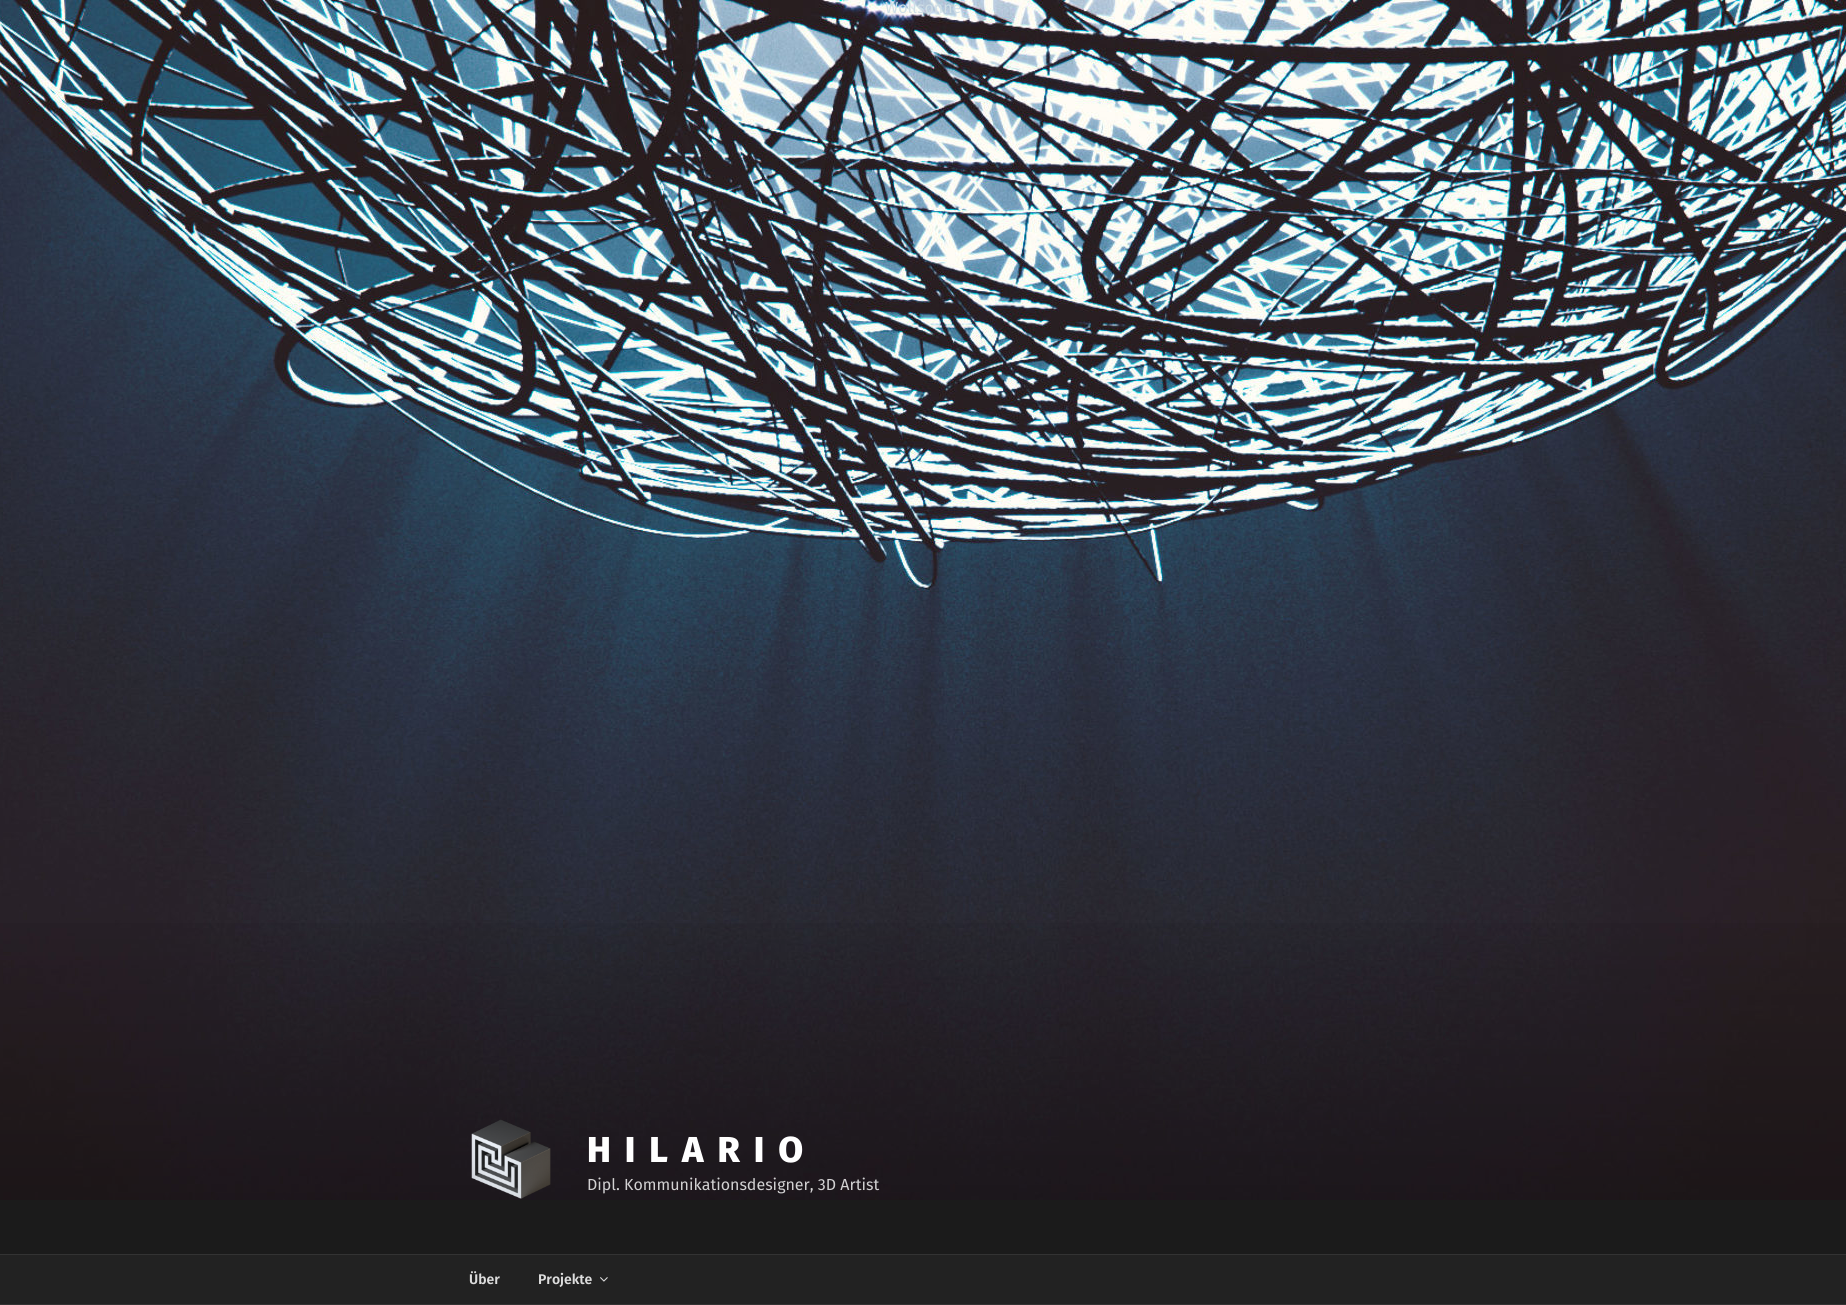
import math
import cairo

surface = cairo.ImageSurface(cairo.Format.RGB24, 1846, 1305)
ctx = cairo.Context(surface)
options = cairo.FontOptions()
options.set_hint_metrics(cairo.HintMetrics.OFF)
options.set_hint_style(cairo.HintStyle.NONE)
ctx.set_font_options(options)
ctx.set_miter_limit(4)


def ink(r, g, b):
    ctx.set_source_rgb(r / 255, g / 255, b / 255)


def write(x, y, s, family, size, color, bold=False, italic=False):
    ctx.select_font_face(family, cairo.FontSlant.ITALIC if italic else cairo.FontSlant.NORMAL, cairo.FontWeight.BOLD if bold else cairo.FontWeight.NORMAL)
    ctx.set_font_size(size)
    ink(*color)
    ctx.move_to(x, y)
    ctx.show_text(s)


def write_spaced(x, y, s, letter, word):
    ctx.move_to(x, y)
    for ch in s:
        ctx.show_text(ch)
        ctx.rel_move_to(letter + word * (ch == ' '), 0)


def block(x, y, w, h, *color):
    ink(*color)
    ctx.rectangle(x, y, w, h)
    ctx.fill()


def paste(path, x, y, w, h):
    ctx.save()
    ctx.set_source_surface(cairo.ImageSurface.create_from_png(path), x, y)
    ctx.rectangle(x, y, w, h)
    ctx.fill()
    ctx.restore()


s1 = dict(family="Fira Sans", size=16, color=(207, 222, 230))
s2 = dict(family="Fira Sans", size=16, color=(210, 209, 210))
s3 = dict(family="Fira Sans SemiBold", size=14, color=(221, 221, 221))

ink(38, 38, 38)
ctx.paint()
paste("pic1.png", 0, 0, 1846, 1200)
write(885, 13, "Wollsonne", **s1)
gradient = cairo.LinearGradient(923, 874, 923, 1305)
gradient.add_color_stop_rgba(0, 0, 0, 0, 0)
gradient.add_color_stop_rgba(0.75, 0, 0, 0, 0.3)
gradient.add_color_stop_rgba(1, 0, 0, 0, 0.3)
ctx.set_source(gradient)
ctx.rectangle(0, 923, 1846, 331)
ctx.fill()
paste("pic2.png", 471, 1119, 80, 80)
ctx.select_font_face("Fira Sans ExtraBold")
ctx.set_font_size(36)
ink(255, 255, 255)
write_spaced(587, 1162, "H I L A R I O", 2.9, 0)
write(587, 1190, "Dipl. Kommunikationsdesigner, 3D Artist", **s2)
block(0, 1255, 1846, 49, 34, 34, 34)
block(0, 1254, 1846, 1, 51, 51, 51)
block(0, 1304, 1846, 1, 51, 51, 51)
write(469, 1284, "Über", **s3)
write(538, 1284, "Projekte", **s3)
paste("pic3.png", 600, 1277, 8, 5)
surface.write_to_png("screenshot.png")
